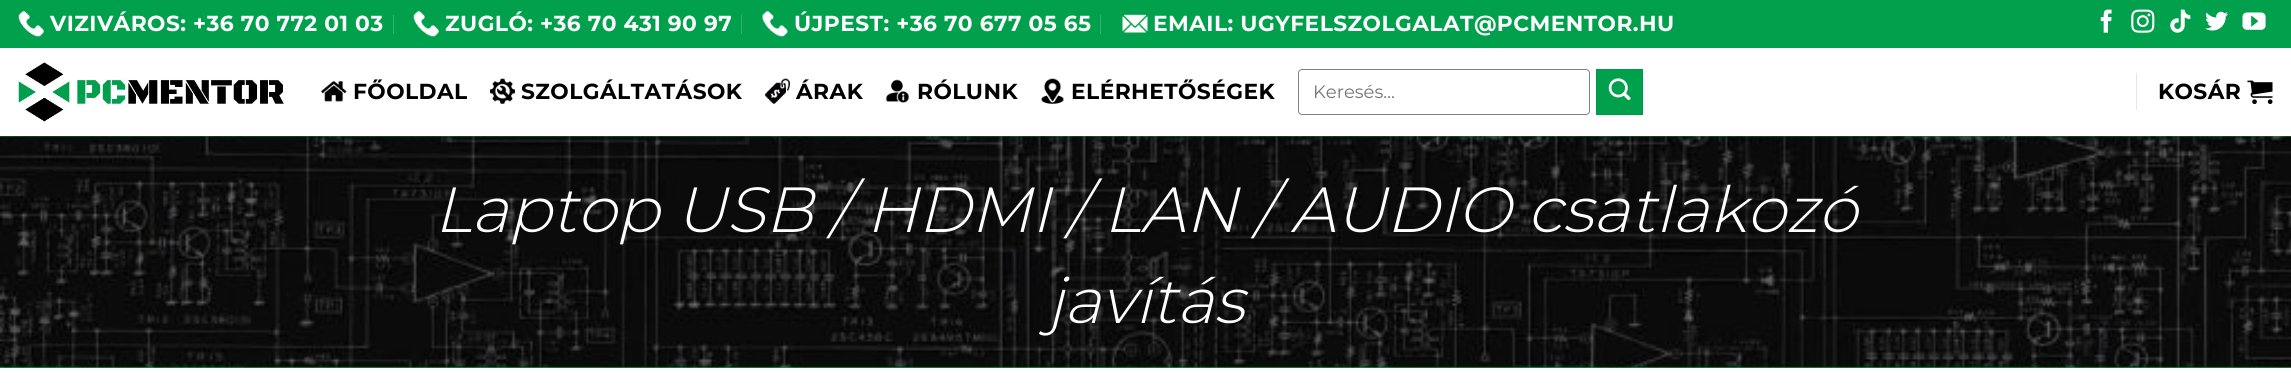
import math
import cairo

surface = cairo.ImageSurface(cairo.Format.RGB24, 2291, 389)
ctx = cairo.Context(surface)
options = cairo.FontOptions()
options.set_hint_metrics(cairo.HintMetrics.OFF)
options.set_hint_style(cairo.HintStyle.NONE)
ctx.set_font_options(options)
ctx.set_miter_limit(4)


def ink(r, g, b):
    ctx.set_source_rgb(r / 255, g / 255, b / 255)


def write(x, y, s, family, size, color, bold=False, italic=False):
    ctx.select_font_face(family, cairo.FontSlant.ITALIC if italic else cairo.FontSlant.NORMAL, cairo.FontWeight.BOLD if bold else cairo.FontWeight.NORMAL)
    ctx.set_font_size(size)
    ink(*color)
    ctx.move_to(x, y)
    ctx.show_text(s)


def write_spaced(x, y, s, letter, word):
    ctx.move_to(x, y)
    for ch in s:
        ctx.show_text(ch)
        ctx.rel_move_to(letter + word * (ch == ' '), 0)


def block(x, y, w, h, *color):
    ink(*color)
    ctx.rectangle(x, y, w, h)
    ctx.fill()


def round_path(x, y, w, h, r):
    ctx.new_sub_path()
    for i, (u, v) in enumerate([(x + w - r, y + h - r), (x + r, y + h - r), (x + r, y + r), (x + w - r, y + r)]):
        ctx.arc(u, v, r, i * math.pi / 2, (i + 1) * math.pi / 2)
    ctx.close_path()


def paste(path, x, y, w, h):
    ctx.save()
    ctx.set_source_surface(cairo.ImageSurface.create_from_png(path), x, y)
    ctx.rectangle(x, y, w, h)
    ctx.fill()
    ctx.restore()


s1 = dict(family="Montserrat", size=18, color=(117, 117, 117))
s2 = dict(family="Montserrat Light", size=63.7, color=(255, 255, 255), italic=True)

ink(255, 255, 255)
ctx.paint()
block(0, 0, 2291, 48, 0, 160, 76)
paste("pic1.png", 18, 11, 26, 26)
ctx.select_font_face("Montserrat", cairo.FontSlant.NORMAL, cairo.FontWeight.BOLD)
ctx.set_font_size(21.75)
ink(255, 255, 255)
write_spaced(50, 31, "VIZIVÁROS: +36 70 772 01 03", 0.45, 0)
block(393, 15, 1, 19, 51, 179, 112)
paste("pic2.png", 413, 11, 26, 26)
ink(255, 255, 255)
write_spaced(445, 31, "ZUGLÓ: +36 70 431 90 97", 0.45, 0)
block(741, 15, 1, 19, 51, 179, 112)
paste("pic3.png", 762, 11, 26, 26)
ink(255, 255, 255)
write_spaced(794, 31, "ÚJPEST: +36 70 677 05 65", 0.45, 0)
block(1100, 15, 1, 19, 51, 179, 112)
paste("pic4.png", 1122, 14, 26, 19)
ink(255, 255, 255)
write_spaced(1153, 31, "EMAIL: UGYFELSZOLGALAT@PCMENTOR.HU", 0.45, 0)
paste("pic5.png", 2100, 9, 12, 24)
paste("pic6.png", 2131, 9, 24, 24)
paste("pic7.png", 2170, 9, 21, 24)
paste("pic8.png", 2205, 11, 23, 20)
paste("pic9.png", 2242, 12, 24, 18)
paste("pic10.png", 18, 62, 266, 60)
paste("pic11.png", 321, 81, 26, 21)
ink(0, 0, 0)
write_spaced(353, 99, "FŐOLDAL", 0.45, 0)
paste("pic12.png", 490, 78, 25, 26)
write_spaced(521, 99, "SZOLGÁLTATÁSOK", 0.45, 0)
paste("pic13.png", 765, 78, 25, 26)
write_spaced(796, 99, "ÁRAK", 0.45, 0)
paste("pic14.png", 885, 79, 25, 24)
write_spaced(917, 99, "RÓLUNK", 0.45, 0)
paste("pic15.png", 1041, 78, 23, 26)
write_spaced(1071, 99, "ELÉRHETŐSÉGEK", 0.45, 0)
round_path(1298.5, 69.5, 291, 45, 3.5)
ink(128, 128, 128)
ctx.set_line_width(1)
ctx.stroke()
write(1313, 98, "Keresés…", **s1)
ink(0, 160, 76)
ctx.rectangle(1596.5, 69.5, 46, 45)
ctx.fill_preserve()
ink(0, 152, 72)
ctx.stroke()
paste("pic16.png", 1608, 78, 23, 23)
block(2136, 73, 1, 37, 230, 230, 230)
ctx.select_font_face("Montserrat", cairo.FontSlant.NORMAL, cairo.FontWeight.BOLD)
ctx.set_font_size(21.75)
ink(0, 0, 0)
write_spaced(2158, 99, "KOSÁR", 0.45, 0)
paste("pic17.png", 2247, 80, 26, 24)
block(0, 136, 2291, 232, 0, 160, 76)
paste("pic18.png", 0, 136, 2291, 232)
ctx.set_source_rgba(0.039, 0.039, 0.039, 0.1)
ctx.rectangle(19, 136, 2254, 1)
ctx.fill()
write(434, 232, "Laptop USB / HDMI / LAN / AUDIO csatlakozó", **s2)
write(1047, 323, "javítás", **s2)
surface.write_to_png("screenshot.png")
